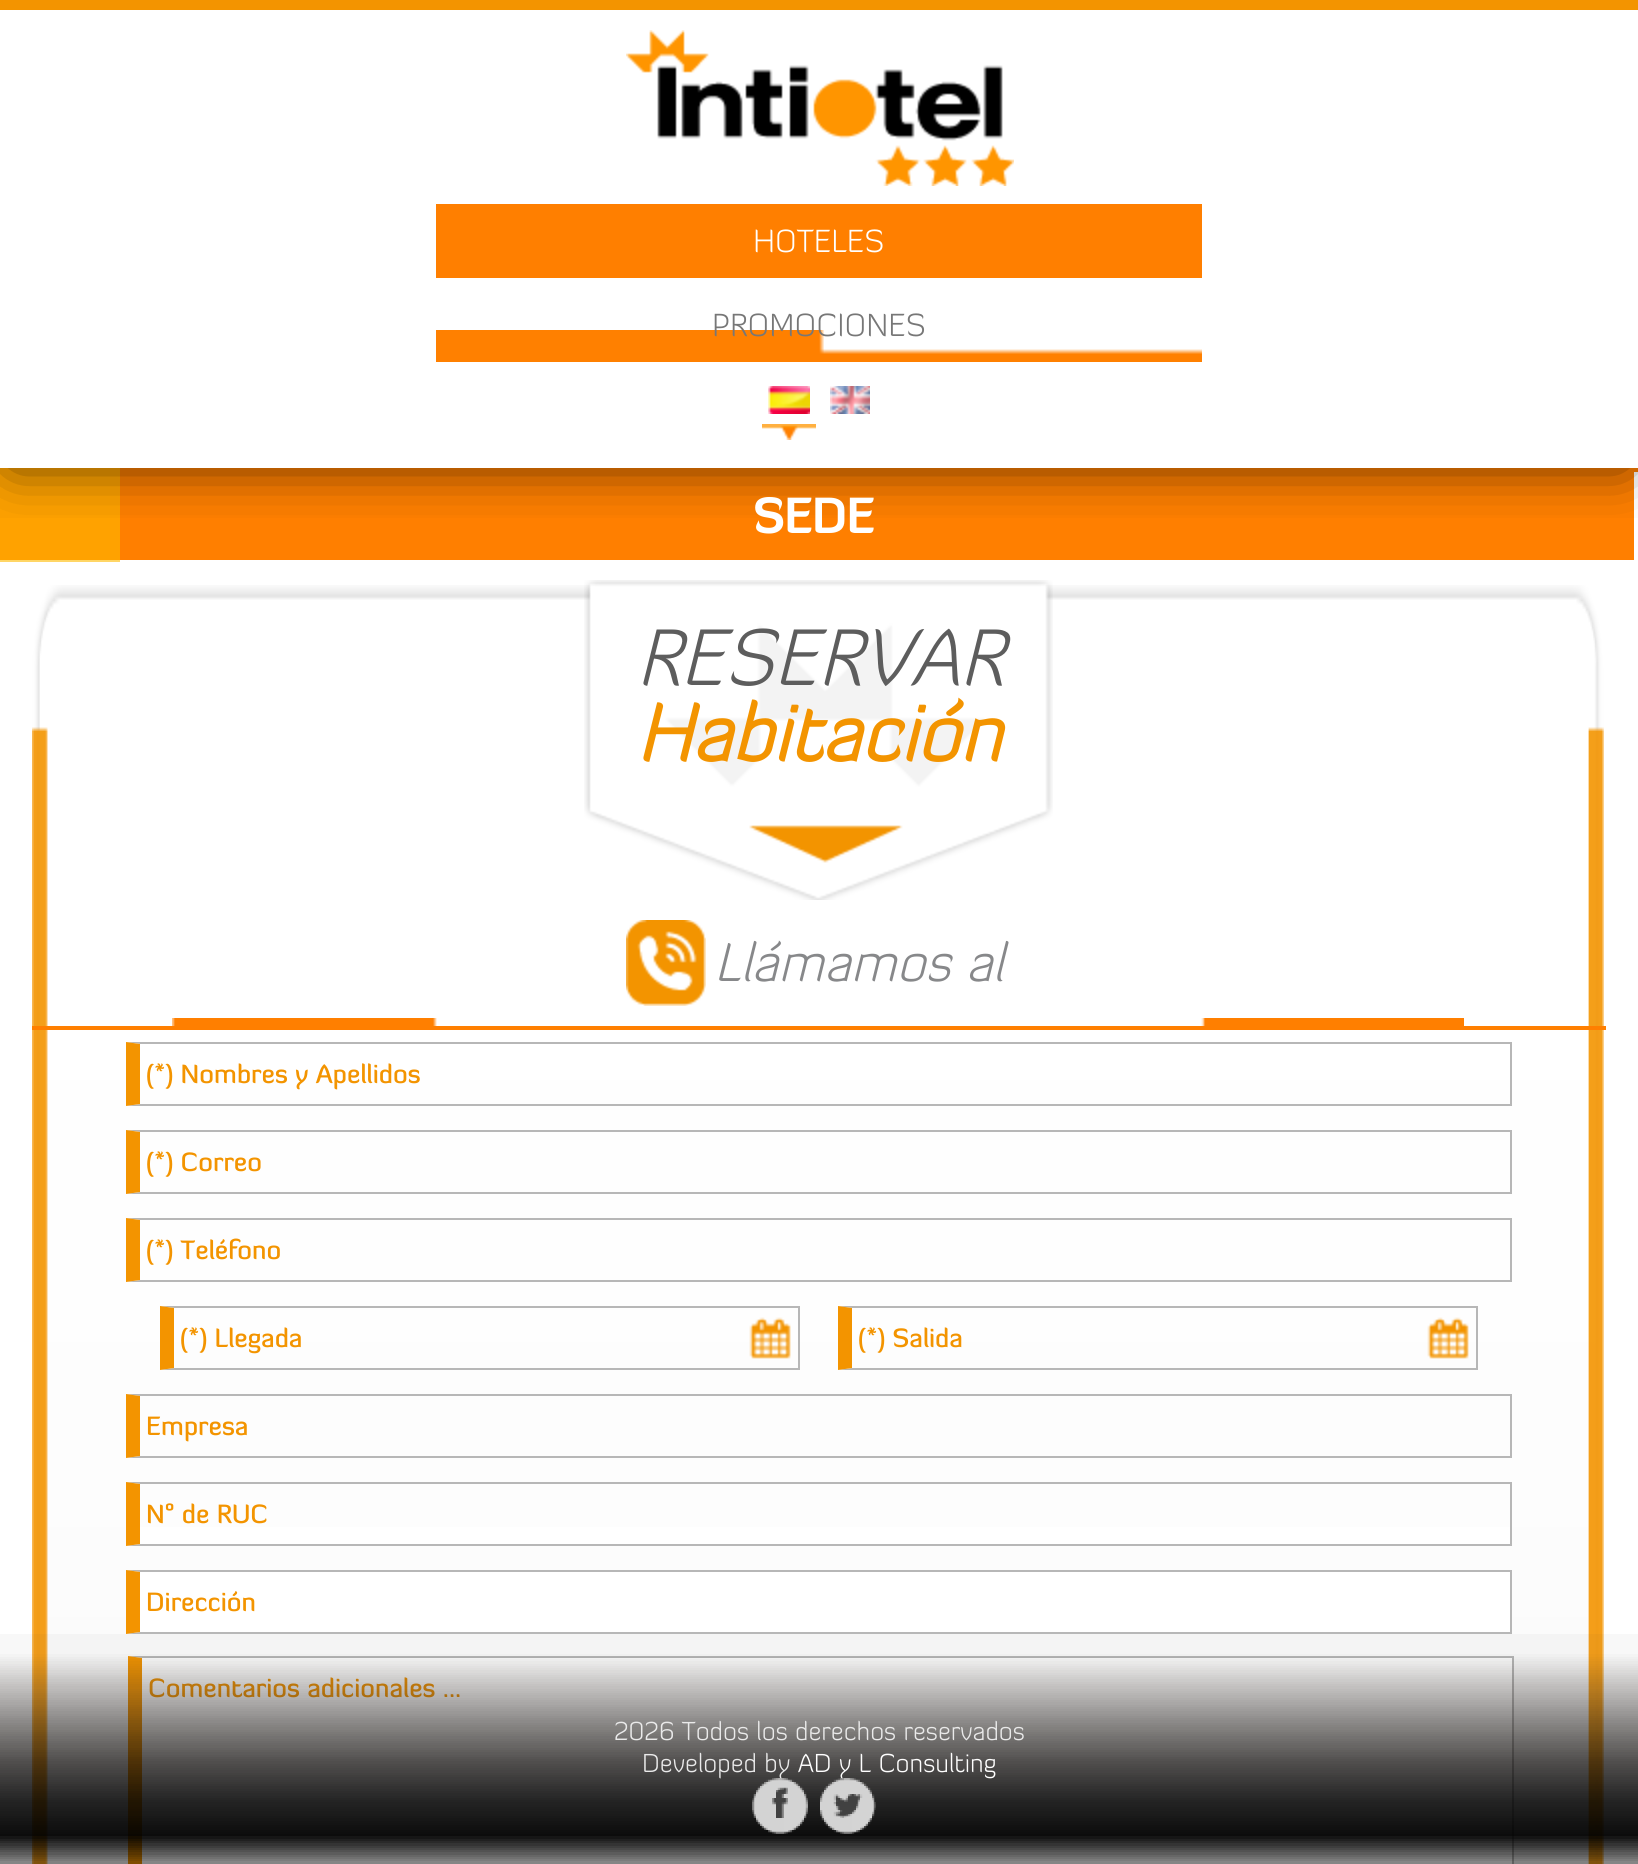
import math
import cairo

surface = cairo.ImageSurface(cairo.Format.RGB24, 1638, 1864)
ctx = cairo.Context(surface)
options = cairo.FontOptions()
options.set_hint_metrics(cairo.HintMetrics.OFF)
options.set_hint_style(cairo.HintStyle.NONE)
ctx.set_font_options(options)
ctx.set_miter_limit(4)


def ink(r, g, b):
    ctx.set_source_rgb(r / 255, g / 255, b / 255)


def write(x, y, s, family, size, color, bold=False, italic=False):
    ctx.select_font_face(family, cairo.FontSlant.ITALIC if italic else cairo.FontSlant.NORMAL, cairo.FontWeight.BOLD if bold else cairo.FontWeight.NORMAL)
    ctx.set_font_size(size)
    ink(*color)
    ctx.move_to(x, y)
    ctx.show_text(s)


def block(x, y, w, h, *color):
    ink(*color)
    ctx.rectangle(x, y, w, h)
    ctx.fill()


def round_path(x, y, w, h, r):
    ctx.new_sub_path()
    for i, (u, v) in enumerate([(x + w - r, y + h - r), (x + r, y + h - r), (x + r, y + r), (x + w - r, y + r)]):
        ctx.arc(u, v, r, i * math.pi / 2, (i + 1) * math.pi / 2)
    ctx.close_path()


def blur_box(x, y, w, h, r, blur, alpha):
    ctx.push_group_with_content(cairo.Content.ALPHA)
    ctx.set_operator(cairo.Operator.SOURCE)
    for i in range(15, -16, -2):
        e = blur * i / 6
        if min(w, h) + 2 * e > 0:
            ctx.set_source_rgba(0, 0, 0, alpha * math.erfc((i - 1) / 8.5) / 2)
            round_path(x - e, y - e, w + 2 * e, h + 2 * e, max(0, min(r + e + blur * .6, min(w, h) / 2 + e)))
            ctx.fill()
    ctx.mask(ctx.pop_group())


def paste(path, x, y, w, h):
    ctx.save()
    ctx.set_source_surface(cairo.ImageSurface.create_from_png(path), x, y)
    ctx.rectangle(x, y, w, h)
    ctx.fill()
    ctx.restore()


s1 = dict(family="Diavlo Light", size=32, color=(255, 255, 255))
s2 = dict(family="Diavlo Light", size=32, color=(119, 119, 119))
s3 = dict(family="Diavlo", size=48, color=(255, 255, 255), bold=True)
s4 = dict(family="Diavlo Light", size=80, color=(93, 93, 93), italic=True)
s5 = dict(family="Diavlo", size=80, color=(243, 148, 0), bold=True, italic=True)
s6 = dict(family="Diavlo Light", size=54, color=(135, 136, 138), italic=True)
s7 = dict(family="Diavlo Medium", size=26, color=(243, 148, 0))
s8 = dict(family="Diavlo Light", size=26, color=(234, 234, 234))
s9 = dict(family="Diavlo Light", size=26, color=(255, 255, 255))

ink(255, 255, 255)
ctx.paint()
block(0, 560, 120, 2, 255, 214, 102)
block(120, 468, 1518, 4, 255, 127, 0)
block(120, 472, 1514, 88, 255, 127, 0)
block(0, 468, 120, 92, 255, 162, 0)
ctx.save()
ctx.rectangle(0, 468, 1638, 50)
ctx.clip()
ink(0, 0, 0)
blur_box(12, 18, 1614, 444, 0, 29, 0.75)
ctx.restore()
block(0, 0, 1638, 10, 243, 148, 0)
paste("pic1.png", 626, 30, 388, 156)
block(436, 204, 766, 74, 255, 127, 0)
write(753, 252, "HOTELES", **s1)
paste("pic2.png", 436, 330, 766, 32)
write(712, 336, "PROMOCIONES", **s2)
paste("pic3.png", 762, 424, 54, 16)
paste("pic4.png", 768, 386, 42, 28)
paste("pic5.png", 830, 386, 40, 28)
write(753, 533, "SEDE", **s3)
paste("pic6.png", 32, 585, 1572, 1279)
paste("pic7.png", 584, 580, 469, 320)
write(636, 685, "RESERVAR", **s4)
write(636, 761, "Habitación", **s5)
paste("pic8.png", 172, 1018, 1292, 8)
block(32, 1026, 1574, 4, 255, 127, 0)
paste("pic9.png", 626, 920, 80, 86)
write(714, 981, "Llámamos al", **s6)
ink(183, 183, 183)
ctx.new_path()
ctx.move_to(126, 1042)
ctx.line_to(1512, 1042)
ctx.line_to(1510, 1044)
ctx.line_to(140, 1044)
ctx.close_path()
ctx.fill()
block(1510, 1042, 2, 64, 183, 183, 183)
ctx.new_path()
ctx.move_to(1512, 1106)
ctx.line_to(126, 1106)
ctx.line_to(140, 1104)
ctx.line_to(1510, 1104)
ctx.close_path()
ctx.fill()
ink(243, 148, 0)
ctx.new_path()
ctx.move_to(126, 1106)
ctx.line_to(126, 1042)
ctx.line_to(140, 1044)
ctx.line_to(140, 1104)
ctx.close_path()
ctx.fill()
write(146, 1083, "(*) Nombres y Apellidos", **s7)
ink(183, 183, 183)
ctx.new_path()
ctx.move_to(126, 1130)
ctx.line_to(1512, 1130)
ctx.line_to(1510, 1132)
ctx.line_to(140, 1132)
ctx.close_path()
ctx.fill()
block(1510, 1130, 2, 64, 183, 183, 183)
ctx.new_path()
ctx.move_to(1512, 1194)
ctx.line_to(126, 1194)
ctx.line_to(140, 1192)
ctx.line_to(1510, 1192)
ctx.close_path()
ctx.fill()
ink(243, 148, 0)
ctx.new_path()
ctx.move_to(126, 1194)
ctx.line_to(126, 1130)
ctx.line_to(140, 1132)
ctx.line_to(140, 1192)
ctx.close_path()
ctx.fill()
write(146, 1171, "(*) Correo", **s7)
ink(183, 183, 183)
ctx.new_path()
ctx.move_to(126, 1218)
ctx.line_to(1512, 1218)
ctx.line_to(1510, 1220)
ctx.line_to(140, 1220)
ctx.close_path()
ctx.fill()
block(1510, 1218, 2, 64, 183, 183, 183)
ctx.new_path()
ctx.move_to(1512, 1282)
ctx.line_to(126, 1282)
ctx.line_to(140, 1280)
ctx.line_to(1510, 1280)
ctx.close_path()
ctx.fill()
ink(243, 148, 0)
ctx.new_path()
ctx.move_to(126, 1282)
ctx.line_to(126, 1218)
ctx.line_to(140, 1220)
ctx.line_to(140, 1280)
ctx.close_path()
ctx.fill()
write(146, 1259, "(*) Teléfono", **s7)
paste("pic10.png", 749, 1317, 42, 42)
ink(183, 183, 183)
ctx.new_path()
ctx.move_to(160, 1306)
ctx.line_to(800, 1306)
ctx.line_to(798, 1308)
ctx.line_to(174, 1308)
ctx.close_path()
ctx.fill()
block(798, 1306, 2, 64, 183, 183, 183)
ctx.new_path()
ctx.move_to(800, 1370)
ctx.line_to(160, 1370)
ctx.line_to(174, 1368)
ctx.line_to(798, 1368)
ctx.close_path()
ctx.fill()
ink(243, 148, 0)
ctx.new_path()
ctx.move_to(160, 1370)
ctx.line_to(160, 1306)
ctx.line_to(174, 1308)
ctx.line_to(174, 1368)
ctx.close_path()
ctx.fill()
write(180, 1347, "(*) Llegada", **s7)
paste("pic10.png", 1427, 1317, 42, 42)
ink(183, 183, 183)
ctx.new_path()
ctx.move_to(838, 1306)
ctx.line_to(1478, 1306)
ctx.line_to(1476, 1308)
ctx.line_to(852, 1308)
ctx.close_path()
ctx.fill()
block(1476, 1306, 2, 64, 183, 183, 183)
ctx.new_path()
ctx.move_to(1478, 1370)
ctx.line_to(838, 1370)
ctx.line_to(852, 1368)
ctx.line_to(1476, 1368)
ctx.close_path()
ctx.fill()
ink(243, 148, 0)
ctx.new_path()
ctx.move_to(838, 1370)
ctx.line_to(838, 1306)
ctx.line_to(852, 1308)
ctx.line_to(852, 1368)
ctx.close_path()
ctx.fill()
write(858, 1347, "(*) Salida", **s7)
ink(183, 183, 183)
ctx.new_path()
ctx.move_to(126, 1394)
ctx.line_to(1512, 1394)
ctx.line_to(1510, 1396)
ctx.line_to(140, 1396)
ctx.close_path()
ctx.fill()
block(1510, 1394, 2, 64, 183, 183, 183)
ctx.new_path()
ctx.move_to(1512, 1458)
ctx.line_to(126, 1458)
ctx.line_to(140, 1456)
ctx.line_to(1510, 1456)
ctx.close_path()
ctx.fill()
ink(243, 148, 0)
ctx.new_path()
ctx.move_to(126, 1458)
ctx.line_to(126, 1394)
ctx.line_to(140, 1396)
ctx.line_to(140, 1456)
ctx.close_path()
ctx.fill()
write(146, 1435, "Empresa", **s7)
block(140, 1527, 1370, 17, 255, 255, 255)
ink(183, 183, 183)
ctx.new_path()
ctx.move_to(126, 1482)
ctx.line_to(1512, 1482)
ctx.line_to(1510, 1484)
ctx.line_to(140, 1484)
ctx.close_path()
ctx.fill()
block(1510, 1482, 2, 64, 183, 183, 183)
ctx.new_path()
ctx.move_to(1512, 1546)
ctx.line_to(126, 1546)
ctx.line_to(140, 1544)
ctx.line_to(1510, 1544)
ctx.close_path()
ctx.fill()
ink(243, 148, 0)
ctx.new_path()
ctx.move_to(126, 1546)
ctx.line_to(126, 1482)
ctx.line_to(140, 1484)
ctx.line_to(140, 1544)
ctx.close_path()
ctx.fill()
write(146, 1523, "N° de RUC", **s7)
block(140, 1572, 1370, 60, 255, 255, 255)
ink(183, 183, 183)
ctx.new_path()
ctx.move_to(126, 1570)
ctx.line_to(1512, 1570)
ctx.line_to(1510, 1572)
ctx.line_to(140, 1572)
ctx.close_path()
ctx.fill()
block(1510, 1570, 2, 64, 183, 183, 183)
ctx.new_path()
ctx.move_to(1512, 1634)
ctx.line_to(126, 1634)
ctx.line_to(140, 1632)
ctx.line_to(1510, 1632)
ctx.close_path()
ctx.fill()
ink(243, 148, 0)
ctx.new_path()
ctx.move_to(126, 1634)
ctx.line_to(126, 1570)
ctx.line_to(140, 1572)
ctx.line_to(140, 1632)
ctx.close_path()
ctx.fill()
write(146, 1611, "Dirección", **s7)
block(142, 1658, 1370, 206, 255, 255, 255)
ink(183, 183, 183)
ctx.new_path()
ctx.move_to(128, 1656)
ctx.line_to(1514, 1656)
ctx.line_to(1512, 1658)
ctx.line_to(142, 1658)
ctx.close_path()
ctx.fill()
block(1512, 1656, 2, 208, 183, 183, 183)
ink(243, 148, 0)
ctx.new_path()
ctx.move_to(128, 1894)
ctx.line_to(128, 1656)
ctx.line_to(142, 1658)
ctx.line_to(142, 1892)
ctx.close_path()
ctx.fill()
write(148, 1697, "Comentarios adicionales ...", **s7)
paste("pic11.png", 0, 1634, 1638, 230)
write(614, 1740, "2026 Todos los derechos reservados", **s8)
write(642, 1772, "Developed by", **s8)
write(798, 1772, "AD y L Consulting", **s9)
paste("pic12.png", 752, 1778, 56, 56)
paste("pic13.png", 820, 1778, 56, 56)
surface.write_to_png("screenshot.png")
